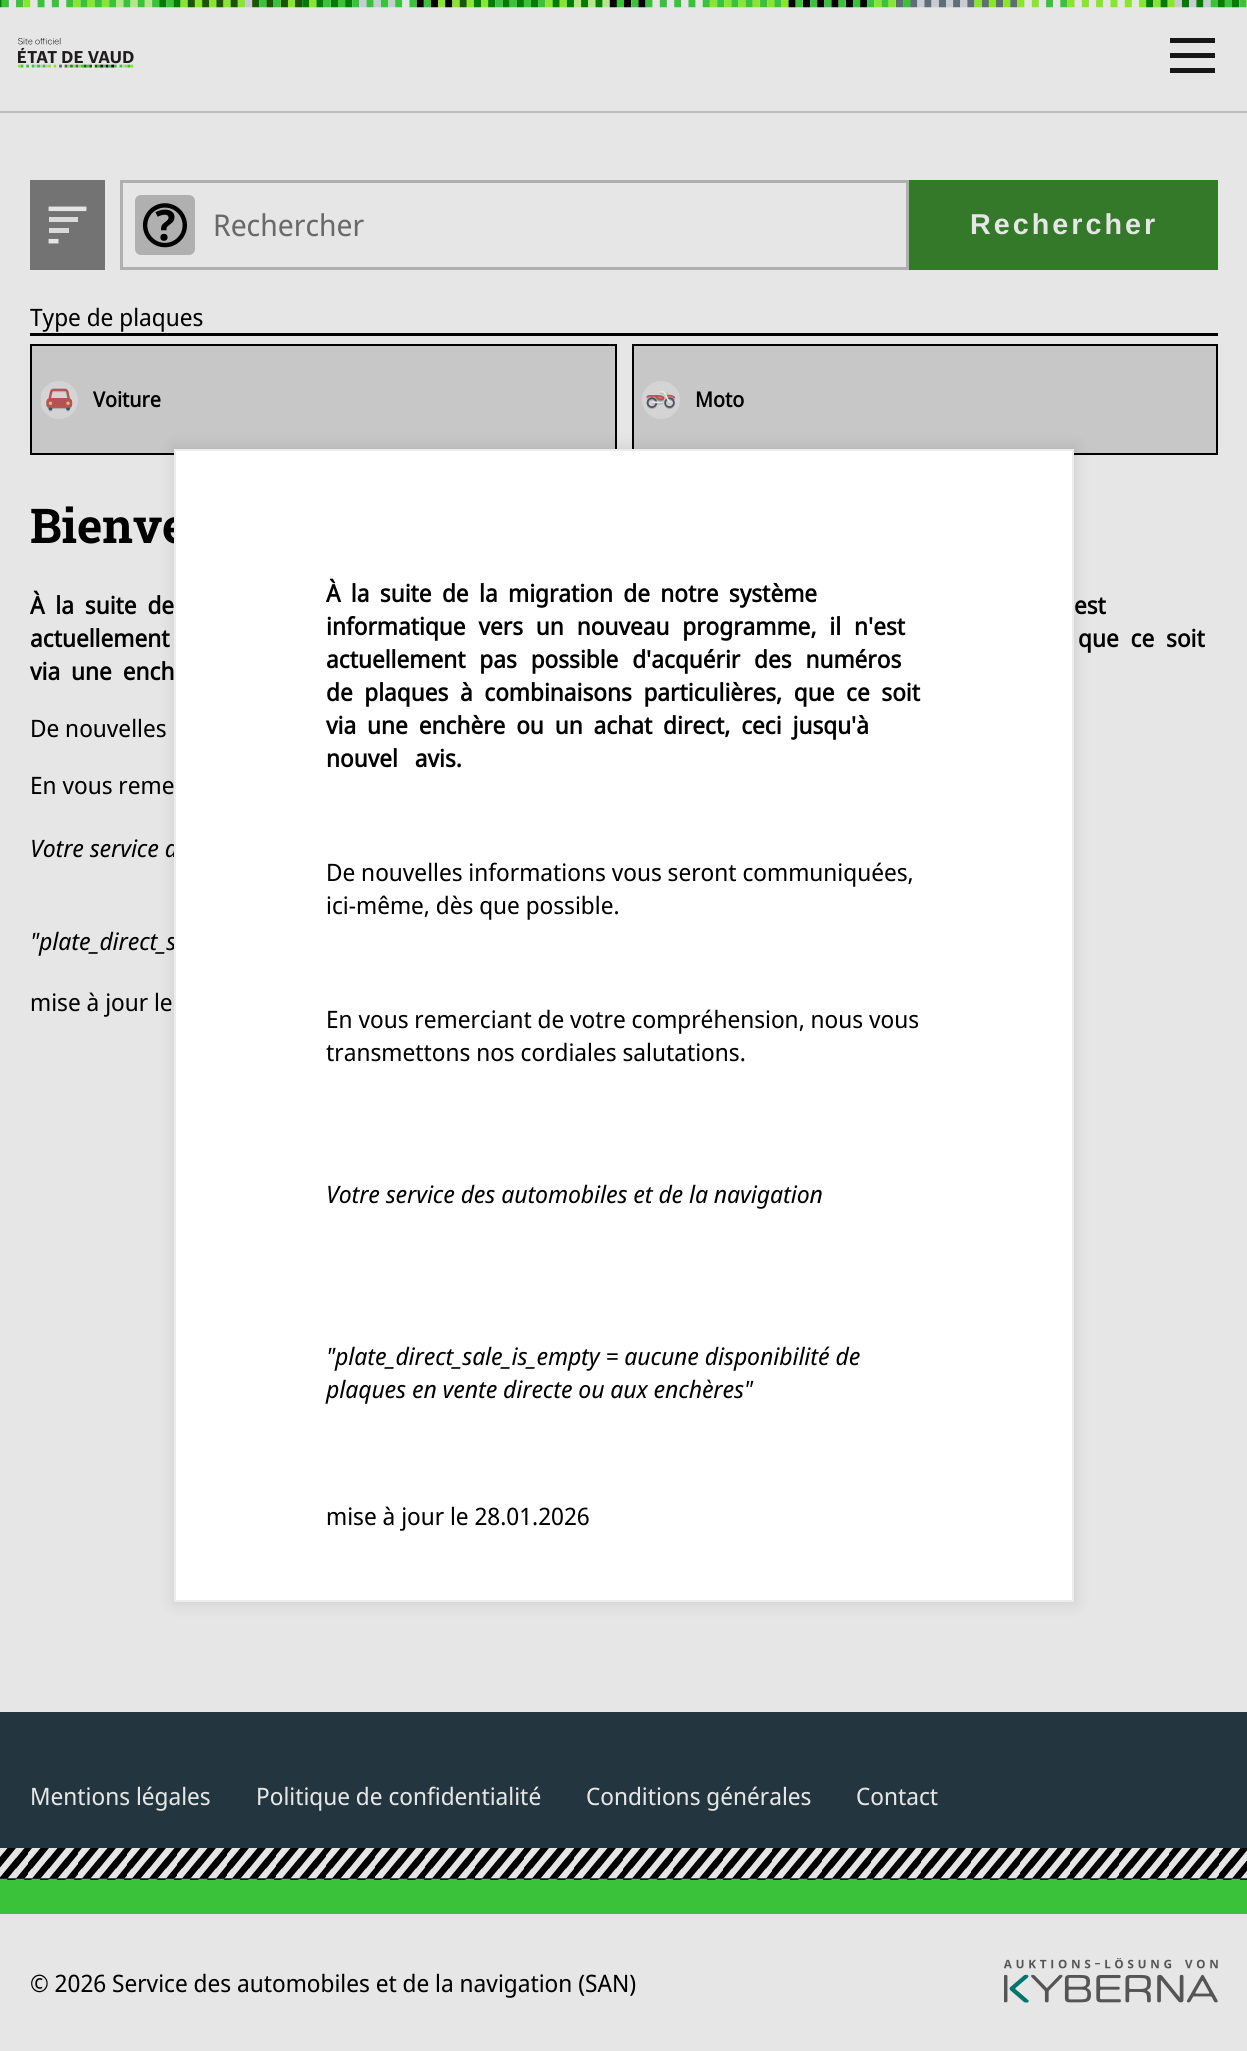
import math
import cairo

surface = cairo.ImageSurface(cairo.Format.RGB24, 1247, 2051)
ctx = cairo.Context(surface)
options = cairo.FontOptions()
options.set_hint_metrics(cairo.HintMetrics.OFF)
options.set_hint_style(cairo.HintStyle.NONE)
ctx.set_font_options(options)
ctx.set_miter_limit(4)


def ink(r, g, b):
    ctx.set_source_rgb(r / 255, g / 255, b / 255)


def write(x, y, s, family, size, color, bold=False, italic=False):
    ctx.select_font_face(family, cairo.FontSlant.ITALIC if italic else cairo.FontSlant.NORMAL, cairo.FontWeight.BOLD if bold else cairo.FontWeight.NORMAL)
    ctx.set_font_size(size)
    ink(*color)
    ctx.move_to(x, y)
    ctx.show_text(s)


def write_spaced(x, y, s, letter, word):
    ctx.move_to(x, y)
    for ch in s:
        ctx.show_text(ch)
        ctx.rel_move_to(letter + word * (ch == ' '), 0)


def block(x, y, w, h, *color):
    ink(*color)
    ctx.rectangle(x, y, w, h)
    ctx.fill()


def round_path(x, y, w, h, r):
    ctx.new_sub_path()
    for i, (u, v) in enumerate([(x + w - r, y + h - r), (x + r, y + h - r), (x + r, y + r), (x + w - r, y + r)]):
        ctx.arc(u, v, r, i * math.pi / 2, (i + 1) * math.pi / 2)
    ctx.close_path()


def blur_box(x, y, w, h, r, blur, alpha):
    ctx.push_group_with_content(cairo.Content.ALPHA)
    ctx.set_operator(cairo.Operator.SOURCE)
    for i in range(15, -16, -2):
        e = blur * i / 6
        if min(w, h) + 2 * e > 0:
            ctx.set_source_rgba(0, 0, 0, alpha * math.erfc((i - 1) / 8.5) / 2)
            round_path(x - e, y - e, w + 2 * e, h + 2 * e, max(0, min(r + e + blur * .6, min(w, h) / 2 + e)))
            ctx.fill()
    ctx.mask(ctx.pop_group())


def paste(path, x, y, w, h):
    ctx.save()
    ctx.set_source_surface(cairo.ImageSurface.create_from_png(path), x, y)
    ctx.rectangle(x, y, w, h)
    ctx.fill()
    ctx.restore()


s1 = dict(family="Noto Sans Display", size=30, color=(105, 105, 105))
s2 = dict(family="Noto Sans Display", size=24, color=(0, 0, 0))
s3 = dict(family="Noto Sans Display", size=21, color=(0, 0, 0), bold=True)
s4 = dict(family="Roboto Slab", size=48, color=(0, 0, 0), bold=True)
s5 = dict(family="Noto Sans Display", size=24, color=(0, 0, 0), italic=True)
s6 = dict(family="Noto Sans Display", size=24, color=(230, 230, 230))

ink(230, 230, 230)
ctx.paint()
paste("pic1.png", 0, 0, 1247, 8)
block(0, 111, 1247, 2, 187, 187, 187)
paste("pic2.png", 18, 38, 116, 30)
block(1170, 38, 45, 5, 23, 23, 23)
block(1170, 53, 45, 5, 23, 23, 23)
block(1170, 68, 45, 5, 23, 23, 23)
block(30, 180, 75, 90, 115, 115, 115)
paste("pic3.png", 48, 206, 39, 38)
ctx.rectangle(121.5, 181.5, 786, 87)
ink(175, 175, 175)
ctx.set_line_width(3)
ctx.stroke()
ink(176, 176, 176)
round_path(135, 195, 60, 60, 6)
ctx.fill()
paste("pic4.png", 143, 203, 44, 45)
write(213, 236, "Rechercher", **s1)
block(909, 180, 309, 90, 52, 121, 41)
ctx.select_font_face("Liberation Sans", cairo.FontSlant.NORMAL, cairo.FontWeight.BOLD)
ctx.set_font_size(28.75)
ink(230, 230, 230)
write_spaced(970, 234, "Rechercher", 3, 0)
block(30, 333, 1188, 3, 0, 0, 0)
write(30, 326, "Type de plaques", **s2)
ink(199, 199, 199)
ctx.rectangle(31, 345, 585, 109)
ctx.fill_preserve()
ink(0, 0, 0)
ctx.set_line_width(2)
ctx.stroke()
paste("pic5.png", 41, 381, 37, 38)
write(93, 407, "Voiture", **s3)
ink(199, 199, 199)
ctx.rectangle(633, 345, 584, 109)
ctx.fill_preserve()
ink(0, 0, 0)
ctx.stroke()
paste("pic6.png", 642, 381, 38, 38)
write(695, 407, "Moto", **s3)
write(30, 543, "Bienve", **s4)
ctx.select_font_face("Noto Sans Display", cairo.FontSlant.NORMAL, cairo.FontWeight.BOLD)
ctx.set_font_size(24)
write_spaced(30, 614, "À la suite de", 0, 5)
write_spaced(1074, 614, "est", 0, 5)
write_spaced(30, 647, "actuellement", 0, 6)
write_spaced(1078, 647, "que ce soit", 0, 6)
write_spaced(30, 680, "via une ench", 0, 5)
write(30, 737, "De nouvelles", **s2)
write(30, 794, "En vous reme", **s2)
write(30, 857, "Votre service d", **s5)
write(30, 950, "\"plate_direct_s", **s5)
write(30, 1011, "mise à jour le", **s2)
block(0, 1712, 1247, 168, 35, 54, 63)
paste("pic7.png", 0, 1848, 1247, 32)
block(0, 1880, 1247, 34, 58, 195, 58)
write(30, 1805, "Mentions légales", **s6)
write(256, 1805, "Politique de confidentialité", **s6)
write(586, 1805, "Conditions générales", **s6)
write(856, 1805, "Contact", **s6)
write(30, 1992, "© 2026 Service des automobiles et de la navigation (SAN)", **s2)
paste("pic8.png", 1004, 1958, 214, 45)
ink(0, 0, 0)
blur_box(173, 447, 903, 1157, 0, 7.5, 0.1)
ink(255, 255, 255)
ctx.rectangle(175, 450, 898, 1151)
ctx.fill_preserve()
ink(236, 236, 236)
ctx.stroke()
ctx.select_font_face("Noto Sans Display", cairo.FontSlant.NORMAL, cairo.FontWeight.BOLD)
ink(0, 0, 0)
write_spaced(326, 602, "À la suite de la migration de notre système", 0, 4.5)
write_spaced(326, 635, "informatique vers un nouveau programme, il n'est", 0, 7)
write_spaced(326, 668, "actuellement pas possible d'acquérir des numéros", 0, 8)
write_spaced(326, 701, "de plaques à combinaisons particulières, que ce soit", 0, 5.75)
write_spaced(326, 734, "via une enchère ou un achat direct, ceci jusqu'à", 0, 5)
write_spaced(326, 767, "nouvel avis.", 0, 11)
write(326, 881, "De nouvelles informations vous seront communiquées,", **s2)
write(326, 914, "ici-même, dès que possible.", **s2)
write(326, 1028, "En vous remerciant de votre compréhension, nous vous", **s2)
write(326, 1061, "transmettons nos cordiales salutations.", **s2)
write(326, 1203, "Votre service des automobiles et de la navigation", **s5)
write(326, 1365, "\"plate_direct_sale_is_empty = aucune disponibilité de", **s5)
write(326, 1398, "plaques en vente directe ou aux enchères\"", **s5)
write(326, 1525, "mise à jour le 28.01.2026", **s2)
surface.write_to_png("screenshot.png")
